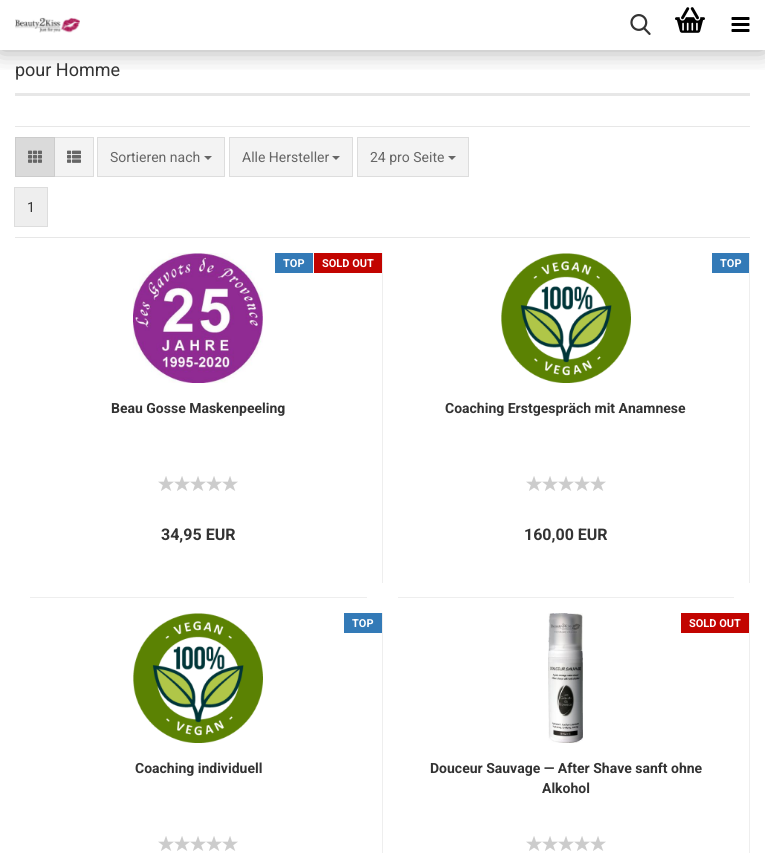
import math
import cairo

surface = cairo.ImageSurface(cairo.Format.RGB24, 765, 853)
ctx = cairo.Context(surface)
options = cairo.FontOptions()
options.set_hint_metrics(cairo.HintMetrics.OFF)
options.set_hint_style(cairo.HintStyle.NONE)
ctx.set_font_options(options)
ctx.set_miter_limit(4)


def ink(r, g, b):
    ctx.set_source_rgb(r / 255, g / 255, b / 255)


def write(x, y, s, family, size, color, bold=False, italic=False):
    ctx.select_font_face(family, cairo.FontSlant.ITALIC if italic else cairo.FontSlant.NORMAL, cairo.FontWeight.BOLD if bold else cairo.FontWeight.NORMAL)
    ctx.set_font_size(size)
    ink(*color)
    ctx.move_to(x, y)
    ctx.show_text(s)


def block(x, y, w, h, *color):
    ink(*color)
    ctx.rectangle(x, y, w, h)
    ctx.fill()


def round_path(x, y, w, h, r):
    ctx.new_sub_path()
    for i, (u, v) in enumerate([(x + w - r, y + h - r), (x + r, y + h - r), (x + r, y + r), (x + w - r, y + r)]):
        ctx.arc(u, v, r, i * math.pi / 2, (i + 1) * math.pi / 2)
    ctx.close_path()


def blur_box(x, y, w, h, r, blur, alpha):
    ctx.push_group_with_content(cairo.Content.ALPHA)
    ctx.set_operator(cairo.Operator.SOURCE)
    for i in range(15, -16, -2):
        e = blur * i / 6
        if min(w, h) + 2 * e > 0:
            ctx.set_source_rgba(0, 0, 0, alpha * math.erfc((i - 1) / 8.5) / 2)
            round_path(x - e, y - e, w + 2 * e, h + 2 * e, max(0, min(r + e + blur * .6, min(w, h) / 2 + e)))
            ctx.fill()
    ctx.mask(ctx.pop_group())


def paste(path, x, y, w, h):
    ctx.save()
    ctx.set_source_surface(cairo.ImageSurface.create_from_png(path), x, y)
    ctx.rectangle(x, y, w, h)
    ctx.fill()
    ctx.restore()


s1 = dict(family="Roboto", size=18, color=(51, 51, 51))
s2 = dict(family="Roboto", size=14, color=(102, 102, 102))
s3 = dict(family="Roboto", size=14, color=(51, 51, 51))
s4 = dict(family="Roboto", size=11, color=(255, 255, 255), bold=True)
s5 = dict(family="Roboto", size=14, color=(51, 51, 51), bold=True)
s6 = dict(family="Roboto", size=16, color=(51, 51, 51), bold=True)

ink(255, 255, 255)
ctx.paint()
ctx.save()
ctx.rectangle(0, 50, 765, 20)
ctx.clip()
ink(0, 0, 0)
blur_box(0, 0, 765, 50, 0, 12.5, 0.35)
ctx.restore()
paste("pic1.png", 15, 17, 65, 16)
paste("pic2.png", 630, 14, 21, 21)
paste("pic3.png", 675, 7, 30, 26)
paste("pic4.png", 731, 17, 19, 15)
block(15, 93, 735, 3, 231, 231, 231)
write(15, 76, "pour Homme", **s1)
block(15, 126, 735, 1, 231, 231, 231)
block(15, 237, 735, 1, 231, 231, 231)
ink(243, 243, 243)
ctx.rectangle(54.5, 137.5, 39, 39)
ctx.fill_preserve()
ink(221, 221, 221)
ctx.set_line_width(1)
ctx.stroke()
ink(218, 218, 218)
ctx.rectangle(15.5, 137.5, 39, 39)
ctx.fill_preserve()
ink(204, 204, 204)
ctx.stroke()
paste("pic5.png", 28, 150, 14, 13)
paste("pic6.png", 67, 150, 14, 13)
ink(243, 243, 243)
ctx.rectangle(97.5, 137.5, 127, 39)
ctx.fill_preserve()
ink(221, 221, 221)
ctx.stroke()
write(110, 162, "Sortieren nach", **s2)
ctx.new_path()
ctx.move_to(204, 156)
ctx.line_to(212, 156)
ctx.line_to(208, 160)
ctx.close_path()
ctx.fill()
ink(243, 243, 243)
ctx.rectangle(229.5, 137.5, 123, 39)
ctx.fill_preserve()
ink(221, 221, 221)
ctx.stroke()
write(242, 162, "Alle Hersteller", **s2)
ctx.new_path()
ctx.move_to(332, 156)
ctx.line_to(340, 156)
ctx.line_to(336, 160)
ctx.close_path()
ctx.fill()
ink(243, 243, 243)
ctx.rectangle(357.5, 137.5, 111, 39)
ctx.fill_preserve()
ink(221, 221, 221)
ctx.stroke()
write(370, 162, "24 pro Seite", **s2)
ctx.new_path()
ctx.move_to(448, 156)
ctx.line_to(456, 156)
ctx.line_to(452, 160)
ctx.close_path()
ctx.fill()
ink(238, 238, 238)
ctx.rectangle(14.5, 187.5, 33, 39)
ctx.fill_preserve()
ink(221, 221, 221)
ctx.stroke()
write(27, 212, "1", **s3)
block(382, 253, 1, 330, 238, 238, 238)
block(30, 597, 337, 1, 238, 238, 238)
paste("pic7.png", 133, 253, 130, 130)
block(275, 253, 38, 20, 51, 122, 183)
write(283, 267, "TOP", **s4)
block(314, 253, 68, 20, 194, 4, 0)
write(322, 267, "SOLD OUT", **s4)
write(111, 413, "Beau Gosse Maskenpeeling", **s5)
paste("pic8.png", 158, 476, 16, 15)
paste("pic8.png", 174, 476, 16, 15)
paste("pic8.png", 190, 476, 16, 15)
paste("pic8.png", 206, 476, 16, 15)
paste("pic8.png", 222, 476, 16, 15)
write(161, 540, "34,95 EUR", **s6)
block(749, 253, 1, 330, 238, 238, 238)
block(398, 597, 336, 1, 238, 238, 238)
paste("pic9.png", 501, 253, 130, 130)
block(712, 253, 37, 20, 51, 122, 183)
write(720, 267, "TOP", **s4)
write(445, 413, "Coaching Erstgespräch mit Anamnese", **s5)
paste("pic8.png", 526, 476, 16, 15)
paste("pic8.png", 542, 476, 16, 15)
paste("pic8.png", 558, 476, 16, 15)
paste("pic8.png", 574, 476, 16, 15)
paste("pic8.png", 590, 476, 16, 15)
write(524, 540, "160,00 EUR", **s6)
block(382, 613, 1, 240, 238, 238, 238)
paste("pic10.png", 133, 613, 130, 130)
block(344, 613, 38, 20, 51, 122, 183)
write(352, 627, "TOP", **s4)
write(135, 773, "Coaching individuell", **s5)
paste("pic8.png", 158, 836, 16, 15)
paste("pic8.png", 174, 836, 16, 15)
paste("pic8.png", 190, 836, 16, 15)
paste("pic8.png", 206, 836, 16, 15)
paste("pic8.png", 222, 836, 16, 15)
block(749, 613, 1, 240, 238, 238, 238)
paste("pic11.png", 548, 613, 35, 130)
block(681, 613, 68, 20, 194, 4, 0)
write(689, 627, "SOLD OUT", **s4)
write(430, 773, "Douceur Sauvage — After Shave sanft ohne", **s5)
write(542, 793, "Alkohol", **s5)
paste("pic8.png", 526, 836, 16, 15)
paste("pic8.png", 542, 836, 16, 15)
paste("pic8.png", 558, 836, 16, 15)
paste("pic8.png", 574, 836, 16, 15)
paste("pic8.png", 590, 836, 16, 15)
surface.write_to_png("screenshot.png")
